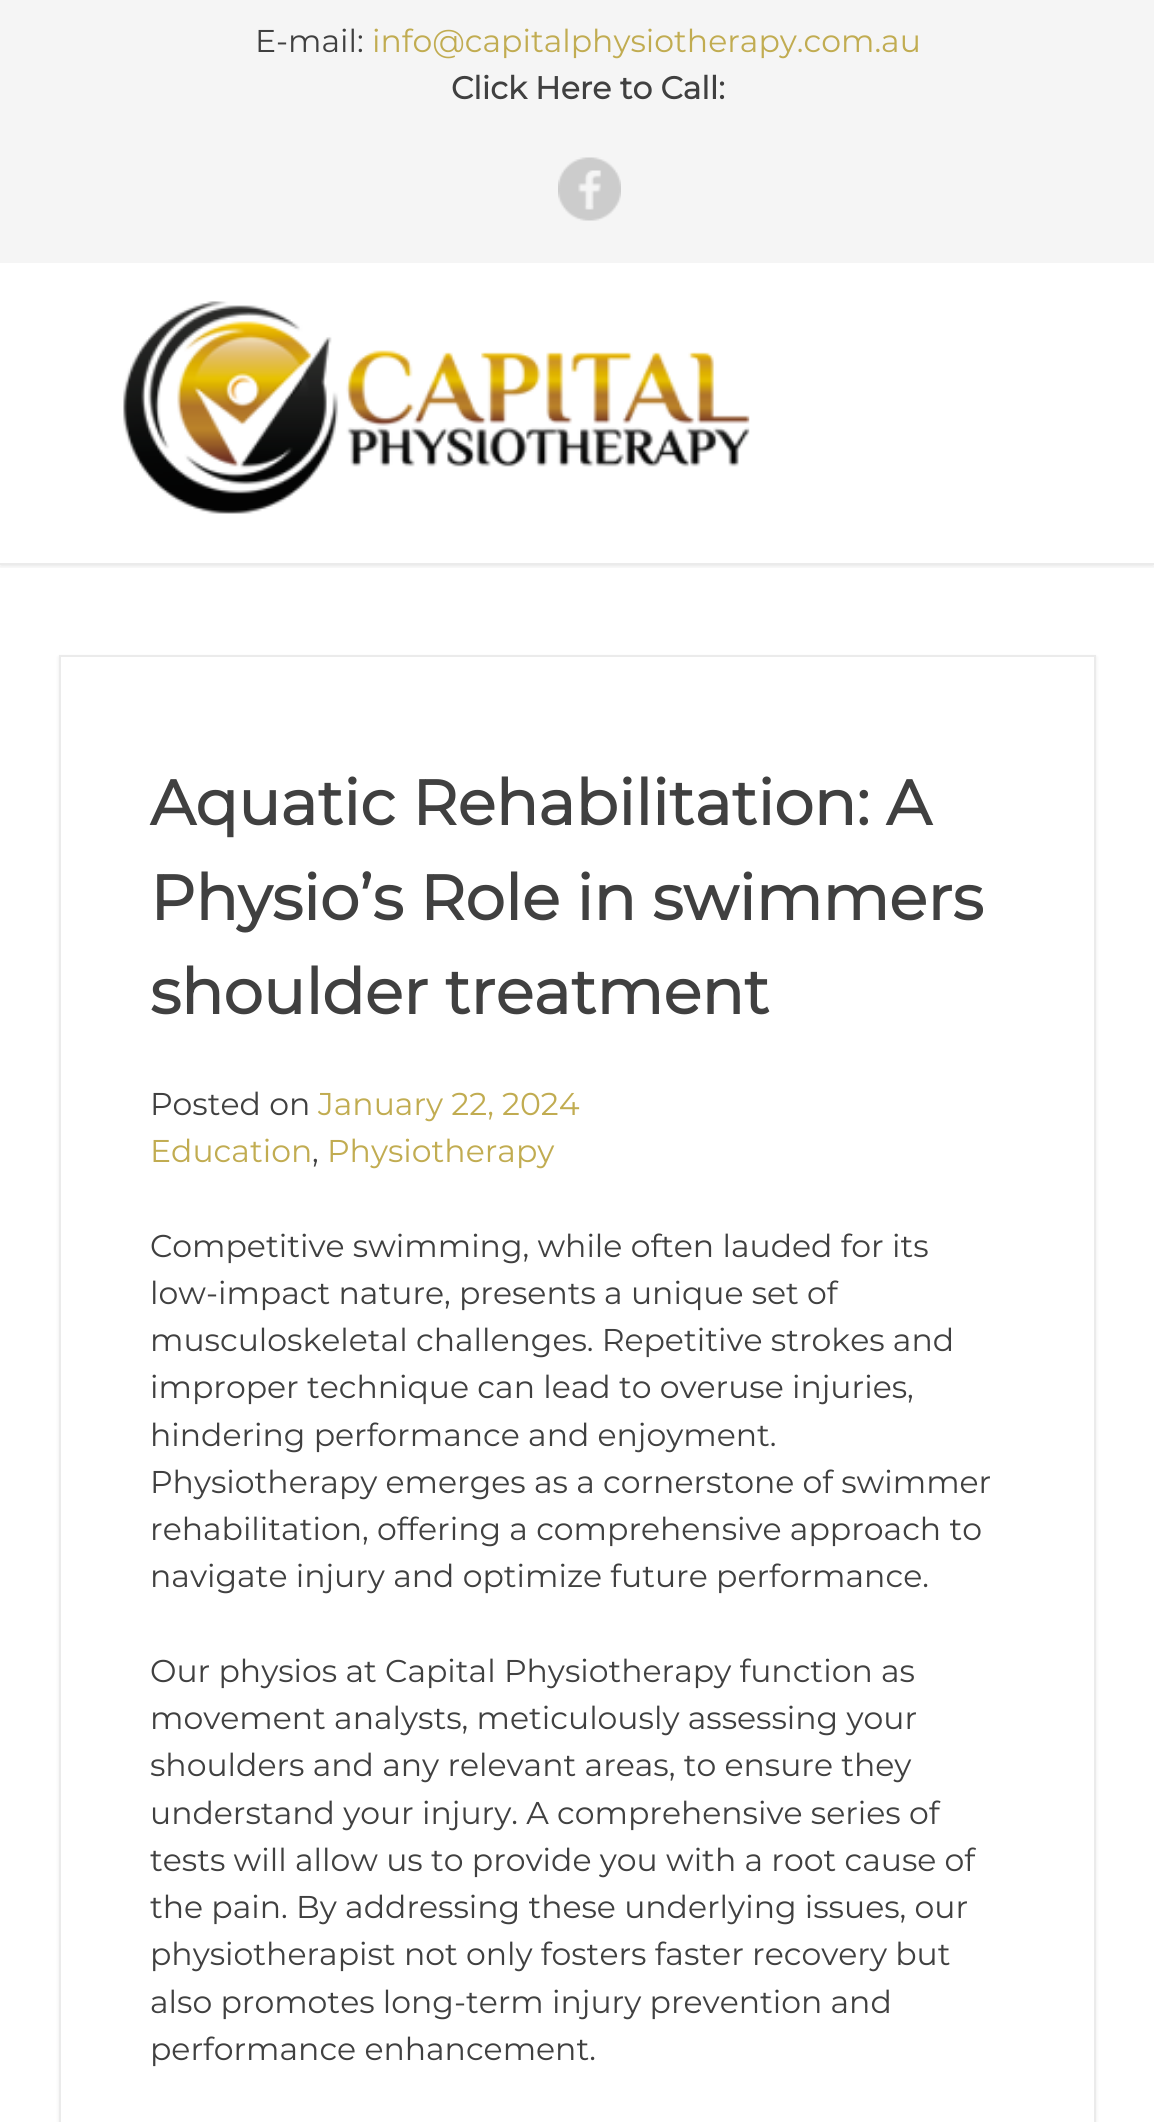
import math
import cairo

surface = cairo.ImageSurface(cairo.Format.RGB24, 1154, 2122)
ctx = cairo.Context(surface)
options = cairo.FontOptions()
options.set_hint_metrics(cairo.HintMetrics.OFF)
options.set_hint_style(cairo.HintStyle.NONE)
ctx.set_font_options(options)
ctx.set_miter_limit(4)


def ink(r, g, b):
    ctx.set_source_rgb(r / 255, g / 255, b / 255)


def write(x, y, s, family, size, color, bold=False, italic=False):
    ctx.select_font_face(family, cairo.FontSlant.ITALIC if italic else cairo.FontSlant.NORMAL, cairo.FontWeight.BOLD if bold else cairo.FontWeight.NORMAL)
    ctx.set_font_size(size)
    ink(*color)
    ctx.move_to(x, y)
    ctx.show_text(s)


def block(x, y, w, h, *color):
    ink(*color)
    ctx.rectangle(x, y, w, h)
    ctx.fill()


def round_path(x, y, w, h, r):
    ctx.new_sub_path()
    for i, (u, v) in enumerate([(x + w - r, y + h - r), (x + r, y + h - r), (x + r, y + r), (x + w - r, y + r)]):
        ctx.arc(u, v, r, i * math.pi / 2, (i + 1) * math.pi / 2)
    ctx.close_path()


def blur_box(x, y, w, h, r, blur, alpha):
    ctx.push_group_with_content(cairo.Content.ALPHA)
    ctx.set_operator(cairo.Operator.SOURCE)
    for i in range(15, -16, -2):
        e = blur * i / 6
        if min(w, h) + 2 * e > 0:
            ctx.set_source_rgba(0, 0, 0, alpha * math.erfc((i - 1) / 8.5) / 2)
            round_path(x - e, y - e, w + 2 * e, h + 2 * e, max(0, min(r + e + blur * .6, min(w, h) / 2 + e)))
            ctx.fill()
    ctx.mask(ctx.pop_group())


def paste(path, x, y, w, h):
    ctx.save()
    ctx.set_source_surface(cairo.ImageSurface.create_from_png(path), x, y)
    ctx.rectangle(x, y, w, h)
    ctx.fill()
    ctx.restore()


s1 = dict(family="Montserrat Thin", size=31.5, color=(64, 64, 64))
s2 = dict(family="Montserrat Thin", size=31.5, color=(193, 172, 81))
s3 = dict(family="Montserrat", size=31.5, color=(64, 64, 64), bold=True)
s4 = dict(family="Montserrat", size=63, color=(64, 64, 64), bold=True)

ink(255, 255, 255)
ctx.paint()
block(0, 0, 1154, 263, 245, 245, 245)
write(255, 52, "E-mail:", **s1)
write(372, 52, "info@capitalphysiotherapy.com.au", **s2)
write(451, 99, "Click Here to Call:", **s3)
paste("pic1.png", 558, 157, 63, 64)
ctx.save()
ctx.rectangle(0, 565, 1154, 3)
ctx.clip()
ink(0, 0, 0)
blur_box(0, 266, 1154, 301, 0, 2, 0.08)
ctx.restore()
block(0, 563, 1154, 2, 235, 235, 235)
paste("pic2.png", 123, 301, 627, 213)
ink(0, 0, 0)
blur_box(59, 657, 1037, 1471, 0, 2, 0.08)
ink(255, 255, 255)
ctx.rectangle(60, 656, 1035, 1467)
ctx.fill_preserve()
ink(235, 235, 235)
ctx.stroke()
write(150, 825, "Aquatic Rehabilitation: A", **s4)
write(150, 920, "Physio’s Role in swimmers", **s4)
write(150, 1014, "shoulder treatment", **s4)
write(150, 1115, "Posted on", **s1)
write(318, 1115, "January 22, 2024", **s2)
write(150, 1162, "Education", **s2)
write(312, 1162, ",", **s1)
write(327, 1162, "Physiotherapy", **s2)
write(150, 1257, "Competitive swimming, while often lauded for its", **s1)
write(150, 1304, "low-impact nature, presents a unique set of", **s1)
write(150, 1351, "musculoskeletal challenges. Repetitive strokes and", **s1)
write(150, 1398, "improper technique can lead to overuse injuries,", **s1)
write(150, 1446, "hindering performance and enjoyment.", **s1)
write(150, 1493, "Physiotherapy emerges as a cornerstone of swimmer", **s1)
write(150, 1540, "rehabilitation, offering a comprehensive approach to", **s1)
write(150, 1587, "navigate injury and optimize future performance.", **s1)
write(150, 1682, "Our physios at Capital Physiotherapy function as", **s1)
write(150, 1729, "movement analysts, meticulously assessing your", **s1)
write(150, 1776, "shoulders and any relevant areas, to ensure they", **s1)
write(150, 1824, "understand your injury. A comprehensive series of", **s1)
write(150, 1871, "tests will allow us to provide you with a root cause of", **s1)
write(150, 1918, "the pain. By addressing these underlying issues, our", **s1)
write(150, 1965, "physiotherapist not only fosters faster recovery but", **s1)
write(150, 2013, "also promotes long-term injury prevention and", **s1)
write(150, 2060, "performance enhancement.", **s1)
surface.write_to_png("screenshot.png")
